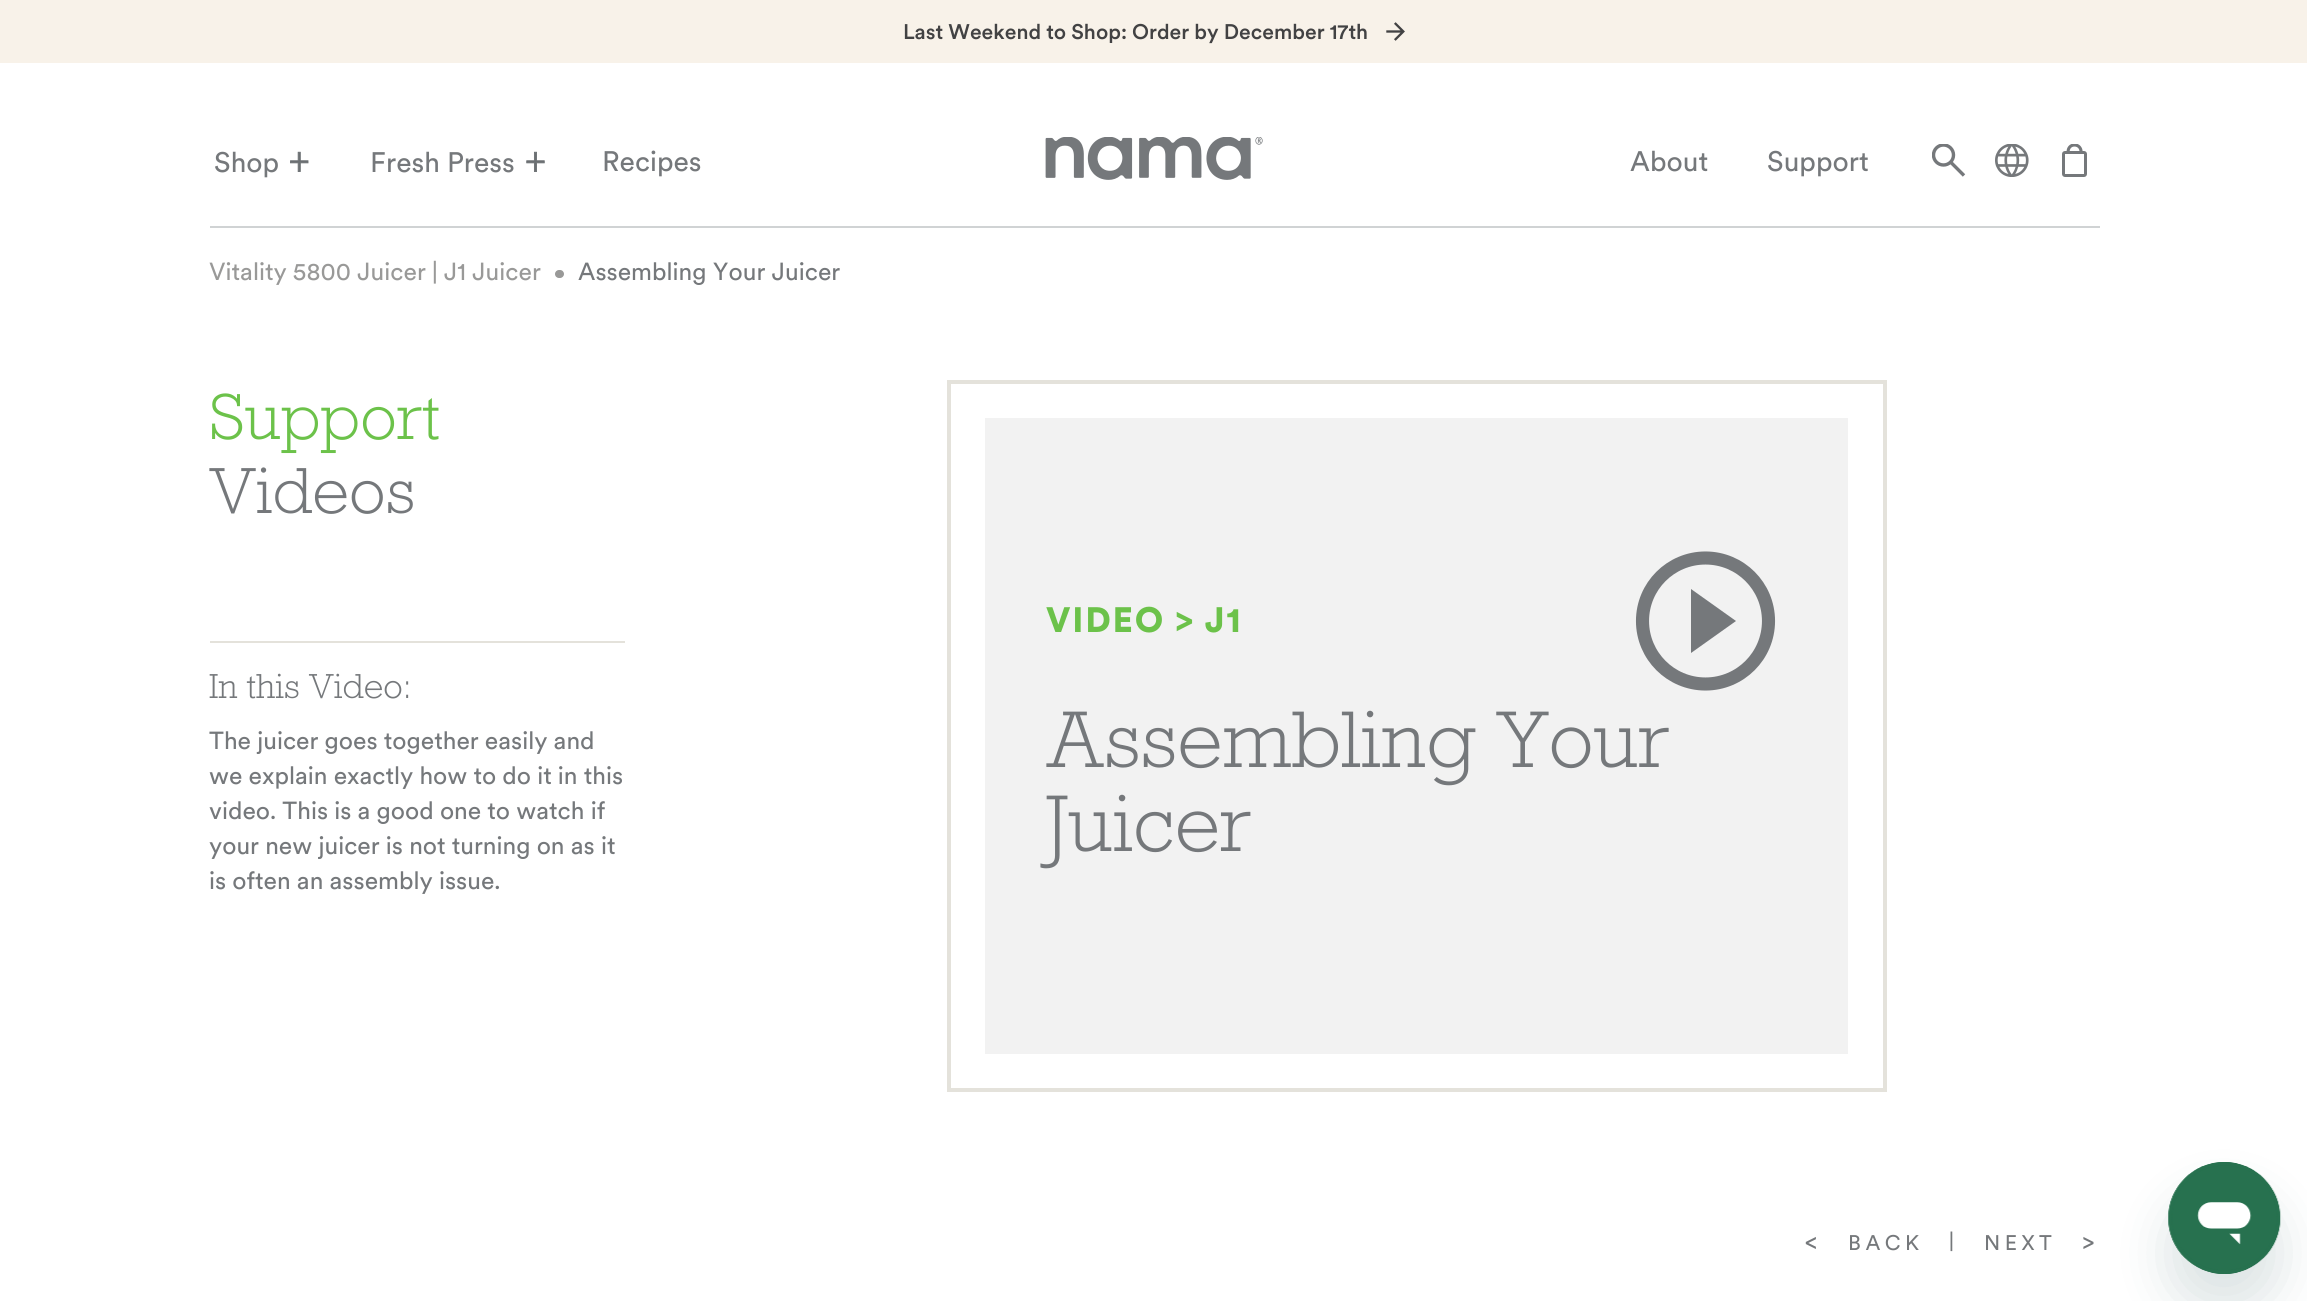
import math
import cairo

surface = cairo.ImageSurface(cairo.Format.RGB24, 2307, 1301)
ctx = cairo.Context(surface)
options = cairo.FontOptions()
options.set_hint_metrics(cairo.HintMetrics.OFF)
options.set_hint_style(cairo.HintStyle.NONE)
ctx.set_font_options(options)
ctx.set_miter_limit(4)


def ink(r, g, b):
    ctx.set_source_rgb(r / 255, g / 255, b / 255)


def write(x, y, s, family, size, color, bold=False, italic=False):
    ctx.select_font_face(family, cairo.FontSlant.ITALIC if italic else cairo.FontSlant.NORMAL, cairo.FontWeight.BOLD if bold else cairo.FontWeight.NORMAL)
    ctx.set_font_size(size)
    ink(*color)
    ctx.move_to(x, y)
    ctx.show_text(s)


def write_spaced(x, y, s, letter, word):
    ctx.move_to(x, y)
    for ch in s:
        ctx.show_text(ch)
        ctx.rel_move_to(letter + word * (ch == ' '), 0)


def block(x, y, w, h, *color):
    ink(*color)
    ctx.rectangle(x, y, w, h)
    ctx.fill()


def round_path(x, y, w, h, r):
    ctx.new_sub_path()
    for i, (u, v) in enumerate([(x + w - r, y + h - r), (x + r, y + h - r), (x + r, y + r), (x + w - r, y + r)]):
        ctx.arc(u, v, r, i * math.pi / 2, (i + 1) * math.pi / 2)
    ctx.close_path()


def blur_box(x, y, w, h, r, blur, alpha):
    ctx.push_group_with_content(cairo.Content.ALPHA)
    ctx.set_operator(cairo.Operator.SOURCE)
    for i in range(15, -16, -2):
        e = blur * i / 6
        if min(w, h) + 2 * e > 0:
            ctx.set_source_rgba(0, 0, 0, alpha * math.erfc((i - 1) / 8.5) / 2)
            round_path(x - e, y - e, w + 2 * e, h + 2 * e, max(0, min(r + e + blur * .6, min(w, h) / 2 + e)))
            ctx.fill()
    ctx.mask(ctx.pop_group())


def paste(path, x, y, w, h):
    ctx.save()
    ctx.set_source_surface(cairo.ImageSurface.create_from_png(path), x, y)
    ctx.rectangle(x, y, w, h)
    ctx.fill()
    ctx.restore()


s1 = dict(family="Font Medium", size=21, color=(66, 66, 67))
s2 = dict(family="Font", size=28, color=(117, 120, 123))
s3 = dict(family="Font", size=24.5, color=(153, 153, 152))
s4 = dict(family="Font", size=24.5, color=(117, 120, 123))
s5 = dict(family="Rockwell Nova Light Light", size=61, color=(108, 194, 74))
s6 = dict(family="Rockwell Nova Light Light", size=61, color=(117, 120, 123))
s7 = dict(family="Rockwell Nova Light Light", size=32.5, color=(117, 120, 123))
s8 = dict(family="Rockwell Nova Light Light", size=75.25, color=(117, 120, 123))

ink(255, 255, 255)
ctx.paint()
block(0, 0, 2307, 63, 248, 242, 233)
write(903, 39, "Last Weekend to Shop: Order by December 17th", **s1)
paste("pic1.png", 1386, 22, 19, 19)
write(214, 172, "Shop", **s2)
paste("pic2.png", 290, 151, 19, 21)
write(370, 172, "Fresh Press", **s2)
paste("pic3.png", 526, 151, 19, 21)
write(602, 171, "Recipes", **s2)
paste("pic4.png", 1045, 137, 218, 43)
write(1630, 171, "About", **s2)
write(1767, 171, "Support", **s2)
ctx.save()
ctx.rectangle(1932, 144, 35, 33)
ctx.clip()
ctx.arc(1943.5, 155, 10, 0, 2 * math.pi)
ctx.set_line_width(3.4)
ctx.stroke()
ctx.restore()
ctx.new_path()
ctx.move_to(1951, 162.5)
ctx.line_to(1964, 175.5)
ctx.set_line_width(3.4)
ctx.stroke()
paste("pic5.png", 1995, 144, 34, 33)
ctx.save()
ctx.rectangle(2058, 144, 35, 33)
ctx.clip()
ctx.new_path()
ctx.move_to(2074.5, 145)
ctx.curve_to(2083, 145, 2083.5, 158, 2074.5, 158)
ctx.curve_to(2066, 158, 2066, 145, 2074.5, 145)
ctx.close_path()
ctx.set_line_width(3.1)
ctx.stroke()
ctx.restore()
ink(255, 255, 255)
round_path(2063.5, 152.5, 22, 23, 1.5)
ctx.fill_preserve()
ink(117, 120, 123)
ctx.set_line_width(3)
ctx.stroke()
block(210, 226, 1890, 2, 208, 211, 212)
write(209, 280, "Vitality 5800 Juicer | J1 Juicer", **s3)
round_path(555, 270, 9, 8, 4)
ctx.fill()
write(578, 280, "Assembling Your Juicer", **s4)
write(209, 439, "Support", **s5)
write(209, 513, "Videos", **s6)
block(210, 641, 415, 2, 228, 226, 219)
write(209, 698, "In this Video:", **s7)
write(209, 749, "The juicer goes together easily and", **s4)
write(209, 784, "we explain exactly how to do it in this", **s4)
write(209, 819, "video. This is a good one to watch if", **s4)
write(209, 854, "your new juicer is not turning on as it", **s4)
write(209, 889, "is often an assembly issue.", **s4)
ctx.rectangle(949, 382, 936, 708)
ink(228, 226, 219)
ctx.set_line_width(4)
ctx.stroke()
block(985, 418, 863, 636, 242, 242, 242)
ctx.select_font_face("Font Black")
ctx.set_font_size(35)
ink(108, 194, 74)
write_spaced(1046, 632, "VIDEO > J1", 1.75, 0)
ctx.new_path()
ctx.arc(1705.5, 621, 63, 0, 2 * math.pi)
ink(117, 120, 123)
ctx.set_line_width(13.1)
ctx.stroke()
ctx.set_fill_rule(cairo.FillRule.EVEN_ODD)
ctx.new_path()
ctx.move_to(1691, 589)
ctx.line_to(1691, 653)
ctx.line_to(1736, 621)
ctx.close_path()
ctx.fill()
write(1046, 767, "Assembling Your", **s8)
write(1046, 851, "Juicer", **s8)
ctx.select_font_face("Font")
ctx.set_font_size(24.5)
write_spaced(1805, 1250, "<", 4.5, 0)
ctx.set_font_size(21)
write_spaced(1848, 1250, "BACK", 4.5, 0)
write_spaced(1949, 1248, "|", 4.5, 0)
write_spaced(1984, 1250, "NEXT", 4.5, 0)
ctx.set_font_size(24.5)
write_spaced(2082, 1250, ">", 4.5, 0)
ink(23, 73, 77)
blur_box(2168, 1197, 112, 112, 56, 26, 0.15)
paste("pic6.png", 2168, 1162, 113, 112)
surface.write_to_png("screenshot.png")
